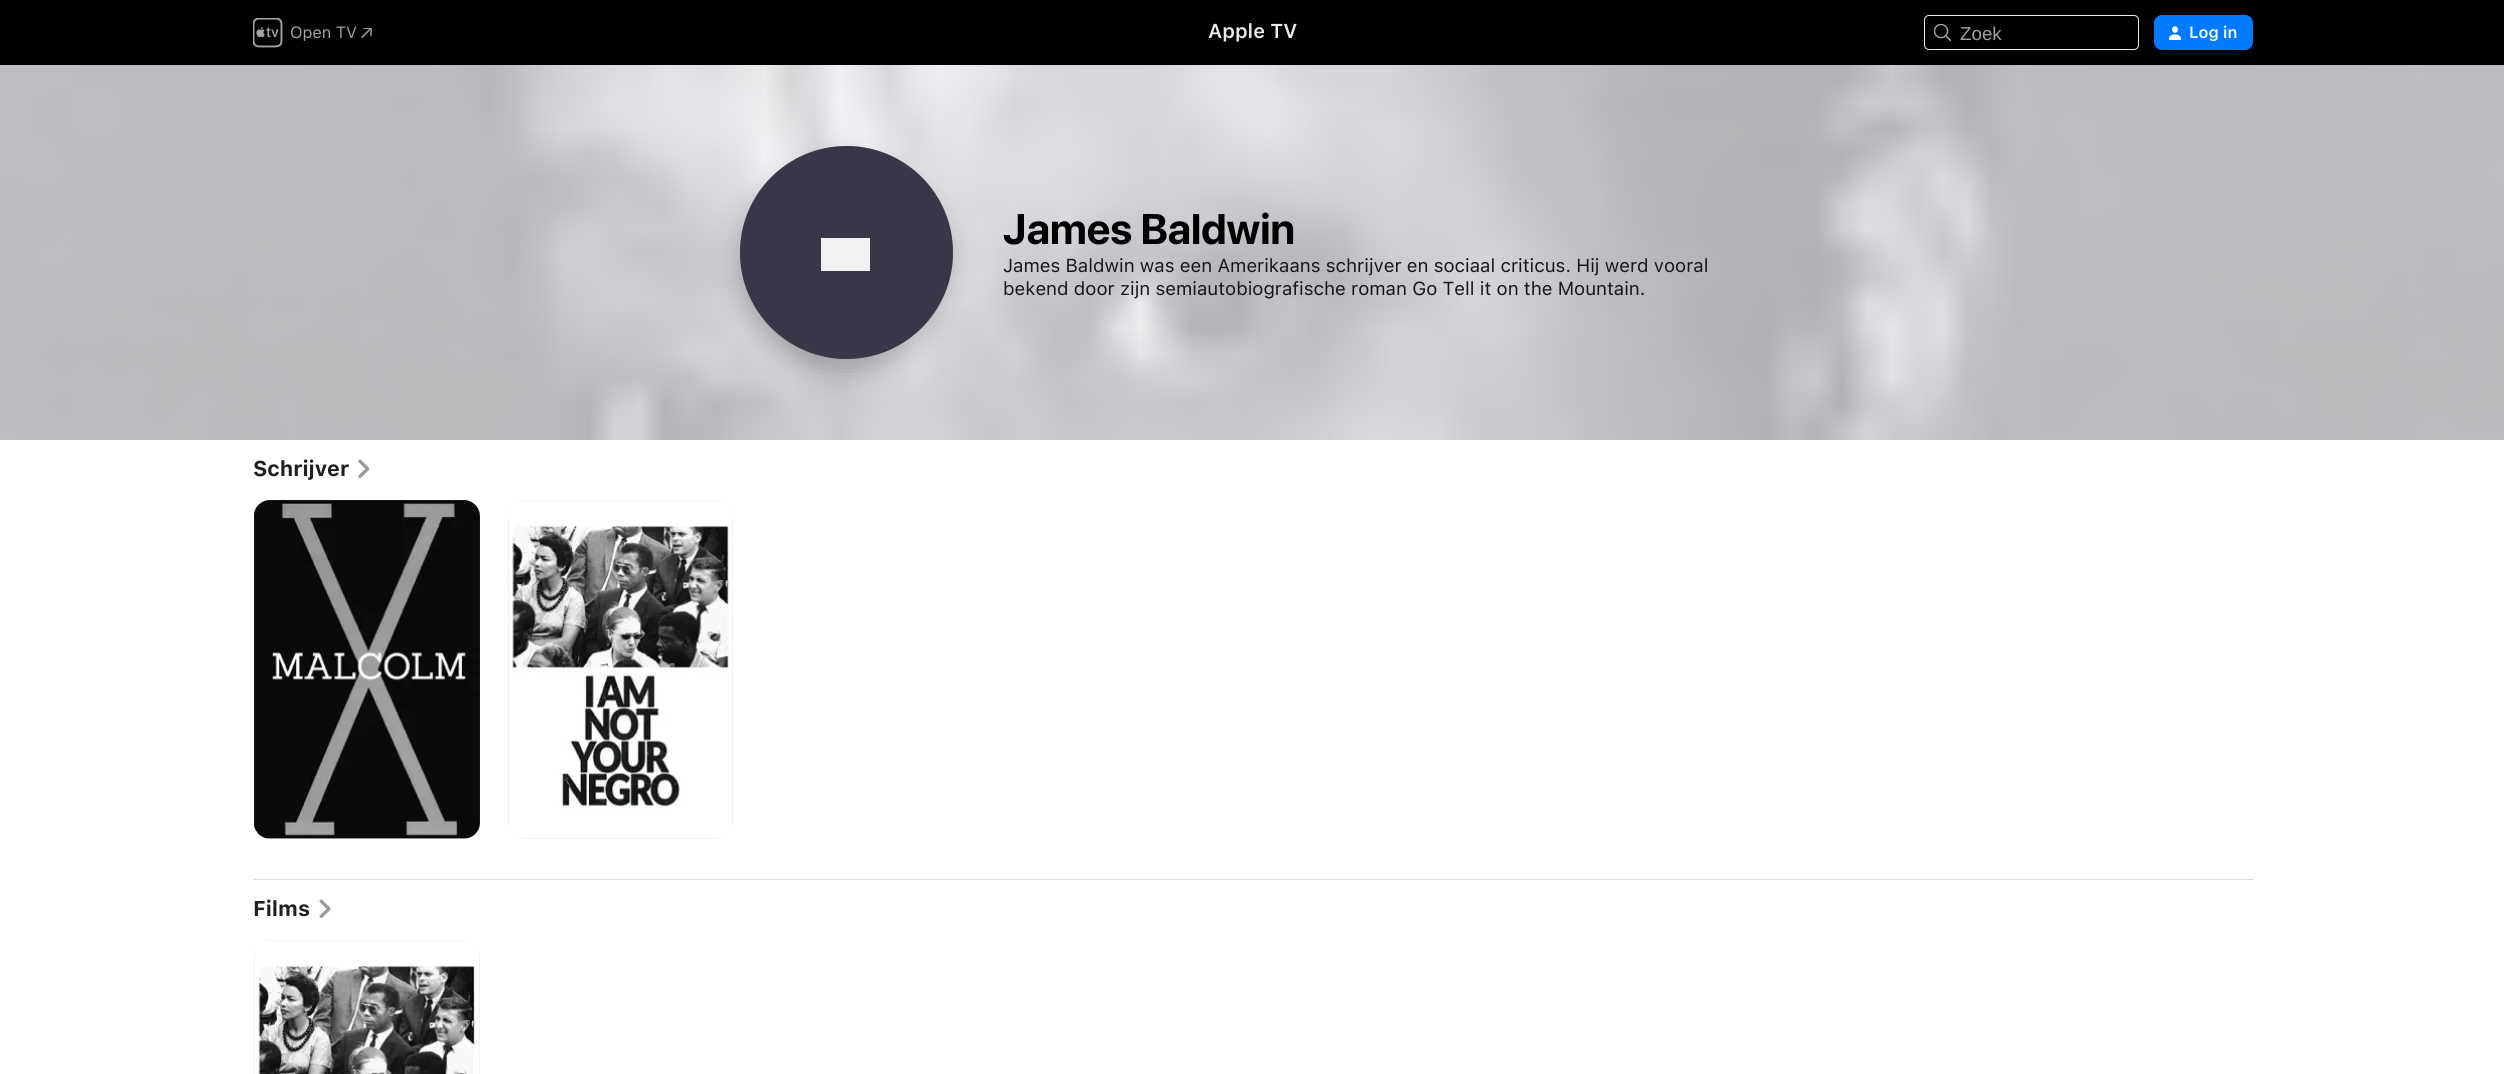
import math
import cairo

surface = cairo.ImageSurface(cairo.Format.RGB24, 2504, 1074)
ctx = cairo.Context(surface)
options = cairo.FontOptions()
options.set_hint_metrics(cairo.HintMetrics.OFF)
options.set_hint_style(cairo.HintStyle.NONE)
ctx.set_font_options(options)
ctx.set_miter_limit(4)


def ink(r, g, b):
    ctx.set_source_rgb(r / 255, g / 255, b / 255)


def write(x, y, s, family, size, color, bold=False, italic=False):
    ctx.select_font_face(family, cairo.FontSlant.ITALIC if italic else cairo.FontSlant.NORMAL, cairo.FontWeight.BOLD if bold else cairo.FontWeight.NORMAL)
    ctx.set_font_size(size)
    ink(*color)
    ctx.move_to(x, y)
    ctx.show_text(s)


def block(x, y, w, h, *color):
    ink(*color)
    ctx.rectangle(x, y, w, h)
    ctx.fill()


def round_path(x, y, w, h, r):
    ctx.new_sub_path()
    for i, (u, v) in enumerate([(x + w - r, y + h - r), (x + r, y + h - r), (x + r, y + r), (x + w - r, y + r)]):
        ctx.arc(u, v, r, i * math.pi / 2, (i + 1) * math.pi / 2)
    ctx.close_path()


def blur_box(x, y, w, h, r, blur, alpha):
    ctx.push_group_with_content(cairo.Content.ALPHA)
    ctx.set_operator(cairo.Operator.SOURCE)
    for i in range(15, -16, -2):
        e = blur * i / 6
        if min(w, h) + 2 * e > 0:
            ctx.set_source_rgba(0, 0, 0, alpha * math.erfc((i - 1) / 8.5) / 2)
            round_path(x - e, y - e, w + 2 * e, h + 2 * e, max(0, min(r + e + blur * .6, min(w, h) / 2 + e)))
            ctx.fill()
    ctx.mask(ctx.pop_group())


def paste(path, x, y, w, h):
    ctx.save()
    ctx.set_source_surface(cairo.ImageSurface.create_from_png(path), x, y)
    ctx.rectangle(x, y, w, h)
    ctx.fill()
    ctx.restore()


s1 = dict(family="SF", size=16.25, color=(163, 163, 163))
s2 = dict(family="SF SemiBold", size=20, color=(235, 235, 235))
s3 = dict(family="Liberation Sans", size=18.75, color=(163, 163, 163))
s4 = dict(family="SF SemiBold", size=16.25, color=(255, 255, 255))
s5 = dict(family="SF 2", size=42.5, color=(0, 0, 0), bold=True)
s6 = dict(family="SF", size=18.75, color=(23, 23, 24))
s7 = dict(family="SF", size=21.25, color=(31, 31, 31), bold=True)

ink(255, 255, 255)
ctx.paint()
block(0, 0, 2504, 65, 0, 0, 0)
paste("pic1.png", 253, 18, 30, 30)
write(290, 38, "Open TV", **s1)
paste("pic2.png", 361, 28, 11, 10)
write(1208, 38, "Apple TV", **s2)
round_path(1924.5, 15.5, 214, 34, 4.5)
ctx.set_line_width(1)
ctx.stroke()
paste("pic3.png", 1934, 24, 17, 17)
write(1960, 40, "Zoek", **s3)
ink(0, 122, 255)
round_path(2154, 15, 99, 35, 8)
ctx.fill()
paste("pic4.png", 2169, 26, 12, 14)
write(2189, 38, "Log in", **s4)
paste("pic5.png", 0, 65, 2504, 375)
ink(0, 0, 0)
blur_box(740, 159, 213, 212, 106, 12.5, 0.2)
ctx.arc(846.5, 252.5, 106, 0, 2 * math.pi)
ctx.set_source_rgba(0, 0, 0, 0.08)
ctx.stroke()
ink(49, 48, 66)
ctx.arc(846.5, 252.5, 106.5, 0, 2 * math.pi)
ctx.fill()
block(821, 238, 49, 33, 255, 255, 255)
ctx.set_source_rgba(0.502, 0.502, 0.502, 0.1)
ctx.new_path()
ctx.move_to(846, 146)
ctx.curve_to(905, 146, 953, 194, 953, 252)
ctx.curve_to(953, 311, 905, 359, 846, 359)
ctx.curve_to(788, 359, 740, 311, 740, 252)
ctx.curve_to(740, 194, 788, 146, 846, 146)
ctx.close_path()
ctx.fill()
write(1003, 244, "James Baldwin", **s5)
write(1003, 272, "James Baldwin was een Amerikaans schrijver en sociaal criticus. Hij werd vooral", **s6)
write(1003, 295, "bekend door zijn semiautobiografische roman Go Tell it on the Mountain.", **s6)
write(253, 476, "Schrijver", **s7)
paste("pic6.png", 358, 459, 12, 19)
paste("pic7.png", 254, 500, 226, 339)
ctx.set_source_rgba(0.502, 0.502, 0.502, 0.1)
ctx.set_fill_rule(cairo.FillRule.EVEN_ODD)
ctx.new_path()
ctx.move_to(254, 516)
ctx.line_to(254, 823)
ctx.line_to(255, 829)
ctx.line_to(255, 510)
ctx.close_path()
ctx.move_to(270, 500)
ctx.line_to(264, 501)
ctx.line_to(470, 501)
ctx.line_to(464, 500)
ctx.close_path()
ctx.move_to(480, 516)
ctx.line_to(479, 510)
ctx.line_to(479, 829)
ctx.line_to(480, 823)
ctx.close_path()
ctx.move_to(464, 839)
ctx.line_to(470, 838)
ctx.line_to(264, 838)
ctx.line_to(270, 839)
ctx.close_path()
ctx.fill()
paste("pic8.png", 511, 524, 218, 285)
ink(242, 242, 242)
ctx.new_path()
ctx.move_to(508, 516)
ctx.line_to(508, 823)
ctx.line_to(509, 829)
ctx.line_to(509, 510)
ctx.close_path()
ctx.move_to(524, 500)
ctx.line_to(518, 501)
ctx.line_to(723, 501)
ctx.line_to(717, 500)
ctx.close_path()
ctx.move_to(733, 516)
ctx.line_to(732, 510)
ctx.line_to(732, 829)
ctx.line_to(733, 823)
ctx.close_path()
ctx.move_to(717, 839)
ctx.line_to(723, 838)
ctx.line_to(518, 838)
ctx.line_to(524, 839)
ctx.close_path()
ctx.fill()
block(253, 879, 2000, 1, 217, 217, 217)
write(253, 916, "Films", **s7)
paste("pic9.png", 319, 899, 12, 19)
paste("pic10.png", 258, 964, 217, 110)
ink(242, 242, 242)
ctx.new_path()
ctx.move_to(254, 956)
ctx.line_to(254, 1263)
ctx.line_to(255, 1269)
ctx.line_to(255, 950)
ctx.close_path()
ctx.move_to(270, 940)
ctx.line_to(264, 941)
ctx.line_to(470, 941)
ctx.line_to(464, 940)
ctx.close_path()
ctx.move_to(480, 956)
ctx.line_to(479, 950)
ctx.line_to(479, 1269)
ctx.line_to(480, 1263)
ctx.close_path()
ctx.move_to(464, 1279)
ctx.line_to(470, 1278)
ctx.line_to(264, 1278)
ctx.line_to(270, 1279)
ctx.close_path()
ctx.fill()
surface.write_to_png("screenshot.png")
